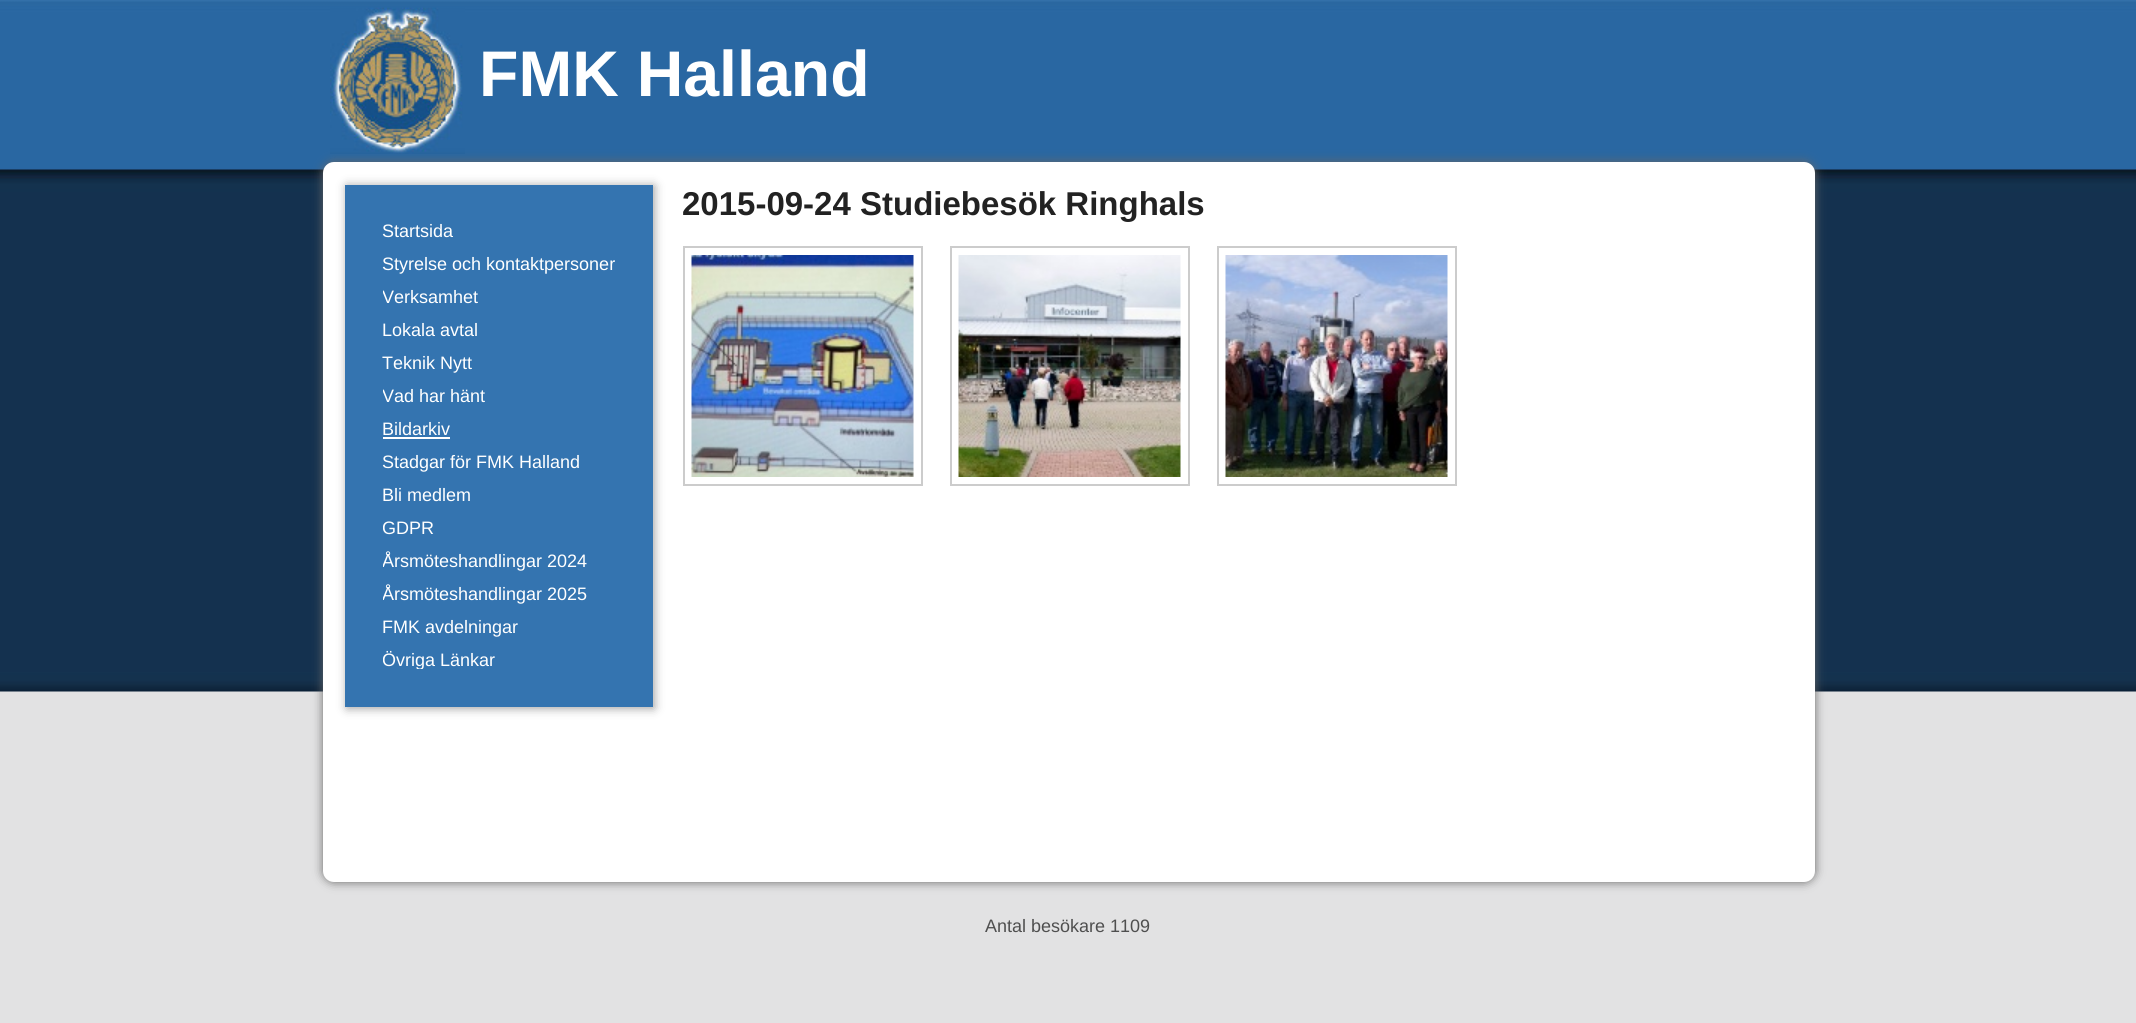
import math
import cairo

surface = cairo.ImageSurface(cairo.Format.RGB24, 2136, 1023)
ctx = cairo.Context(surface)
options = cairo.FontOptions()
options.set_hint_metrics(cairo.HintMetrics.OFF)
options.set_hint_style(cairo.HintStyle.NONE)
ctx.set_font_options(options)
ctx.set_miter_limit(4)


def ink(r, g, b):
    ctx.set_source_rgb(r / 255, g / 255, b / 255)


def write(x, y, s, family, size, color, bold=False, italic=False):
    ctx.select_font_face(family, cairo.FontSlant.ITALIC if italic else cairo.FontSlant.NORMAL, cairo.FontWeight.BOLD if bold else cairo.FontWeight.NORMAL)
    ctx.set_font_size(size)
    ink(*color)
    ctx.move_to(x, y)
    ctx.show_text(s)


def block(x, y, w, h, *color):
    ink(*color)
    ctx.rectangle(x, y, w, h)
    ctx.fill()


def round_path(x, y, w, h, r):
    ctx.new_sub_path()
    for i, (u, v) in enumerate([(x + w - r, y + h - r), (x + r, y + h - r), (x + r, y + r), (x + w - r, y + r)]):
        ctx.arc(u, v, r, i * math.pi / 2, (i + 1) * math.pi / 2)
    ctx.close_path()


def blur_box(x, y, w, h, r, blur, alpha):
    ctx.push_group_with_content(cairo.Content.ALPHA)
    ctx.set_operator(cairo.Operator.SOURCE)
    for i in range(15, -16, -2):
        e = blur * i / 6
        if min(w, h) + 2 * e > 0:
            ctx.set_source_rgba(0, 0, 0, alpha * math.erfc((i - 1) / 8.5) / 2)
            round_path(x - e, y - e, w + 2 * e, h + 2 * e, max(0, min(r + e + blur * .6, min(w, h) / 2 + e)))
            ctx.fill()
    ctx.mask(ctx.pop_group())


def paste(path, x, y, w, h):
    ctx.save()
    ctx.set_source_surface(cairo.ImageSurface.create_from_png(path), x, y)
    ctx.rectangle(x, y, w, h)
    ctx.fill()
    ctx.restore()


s1 = dict(family="Liberation Sans", size=64.5, color=(255, 255, 255), bold=True)
s2 = dict(family="Liberation Sans", size=33, color=(34, 34, 34), bold=True)
s3 = dict(family="Liberation Sans", size=18, color=(255, 255, 255))
s4 = dict(family="Liberation Sans", size=18, color=(79, 79, 79))

ink(226, 226, 227)
ctx.paint()
paste("pic1.png", 0, 0, 2136, 692)
ink(102, 102, 102)
blur_box(323, 162, 1492, 720, 11, 5, 1)
paste("pic2.png", 330, 7, 135, 147)
write(479, 96, "FMK Halland", **s1)
round_path(323, 162, 1492, 720, 11)
ctx.fill()
ctx.save()
ctx.rectangle(683, 185, 1110, 325)
ctx.clip()
write(682, 215, "2015-09-24 Studiebesök Ringhals", **s2)
ctx.restore()
ctx.rectangle(684, 247, 238, 238)
ink(204, 204, 204)
ctx.stroke()
paste("pic3.png", 691, 255, 223, 222)
ctx.rectangle(951, 247, 238, 238)
ctx.stroke()
paste("pic4.png", 958, 255, 223, 222)
ctx.rectangle(1218, 247, 238, 238)
ctx.stroke()
paste("pic5.png", 1225, 255, 223, 222)
ink(153, 153, 153)
blur_box(347, 186, 307, 522, 0, 5, 1)
block(345, 185, 308, 522, 52, 116, 176)
write(382, 237, "Startsida", **s3)
write(382, 270, "Styrelse och kontaktpersoner", **s3)
ctx.save()
ctx.rectangle(383, 207, 270, 462)
ctx.clip()
write(382, 303, "Verksamhet", **s3)
ctx.restore()
write(382, 336, "Lokala avtal", **s3)
write(382, 369, "Teknik Nytt", **s3)
ctx.save()
ctx.rectangle(383, 207, 270, 462)
ctx.clip()
write(382, 402, "Vad har hänt", **s3)
ctx.restore()
write(382, 435, "Bildarkiv", **s3)
block(383, 437, 67, 2, 255, 255, 255)
write(382, 468, "Stadgar för FMK Halland", **s3)
write(382, 501, "Bli medlem", **s3)
ctx.save()
ctx.rectangle(383, 207, 270, 462)
ctx.clip()
write(382, 534, "GDPR", **s3)
write(382, 567, "Årsmöteshandlingar 2024", **s3)
write(382, 600, "Årsmöteshandlingar 2025", **s3)
ctx.restore()
write(382, 633, "FMK avdelningar", **s3)
ctx.save()
ctx.rectangle(383, 207, 270, 462)
ctx.clip()
write(382, 666, "Övriga Länkar", **s3)
ctx.restore()
write(985, 932, "Antal besökare 1109", **s4)
surface.write_to_png("screenshot.png")
